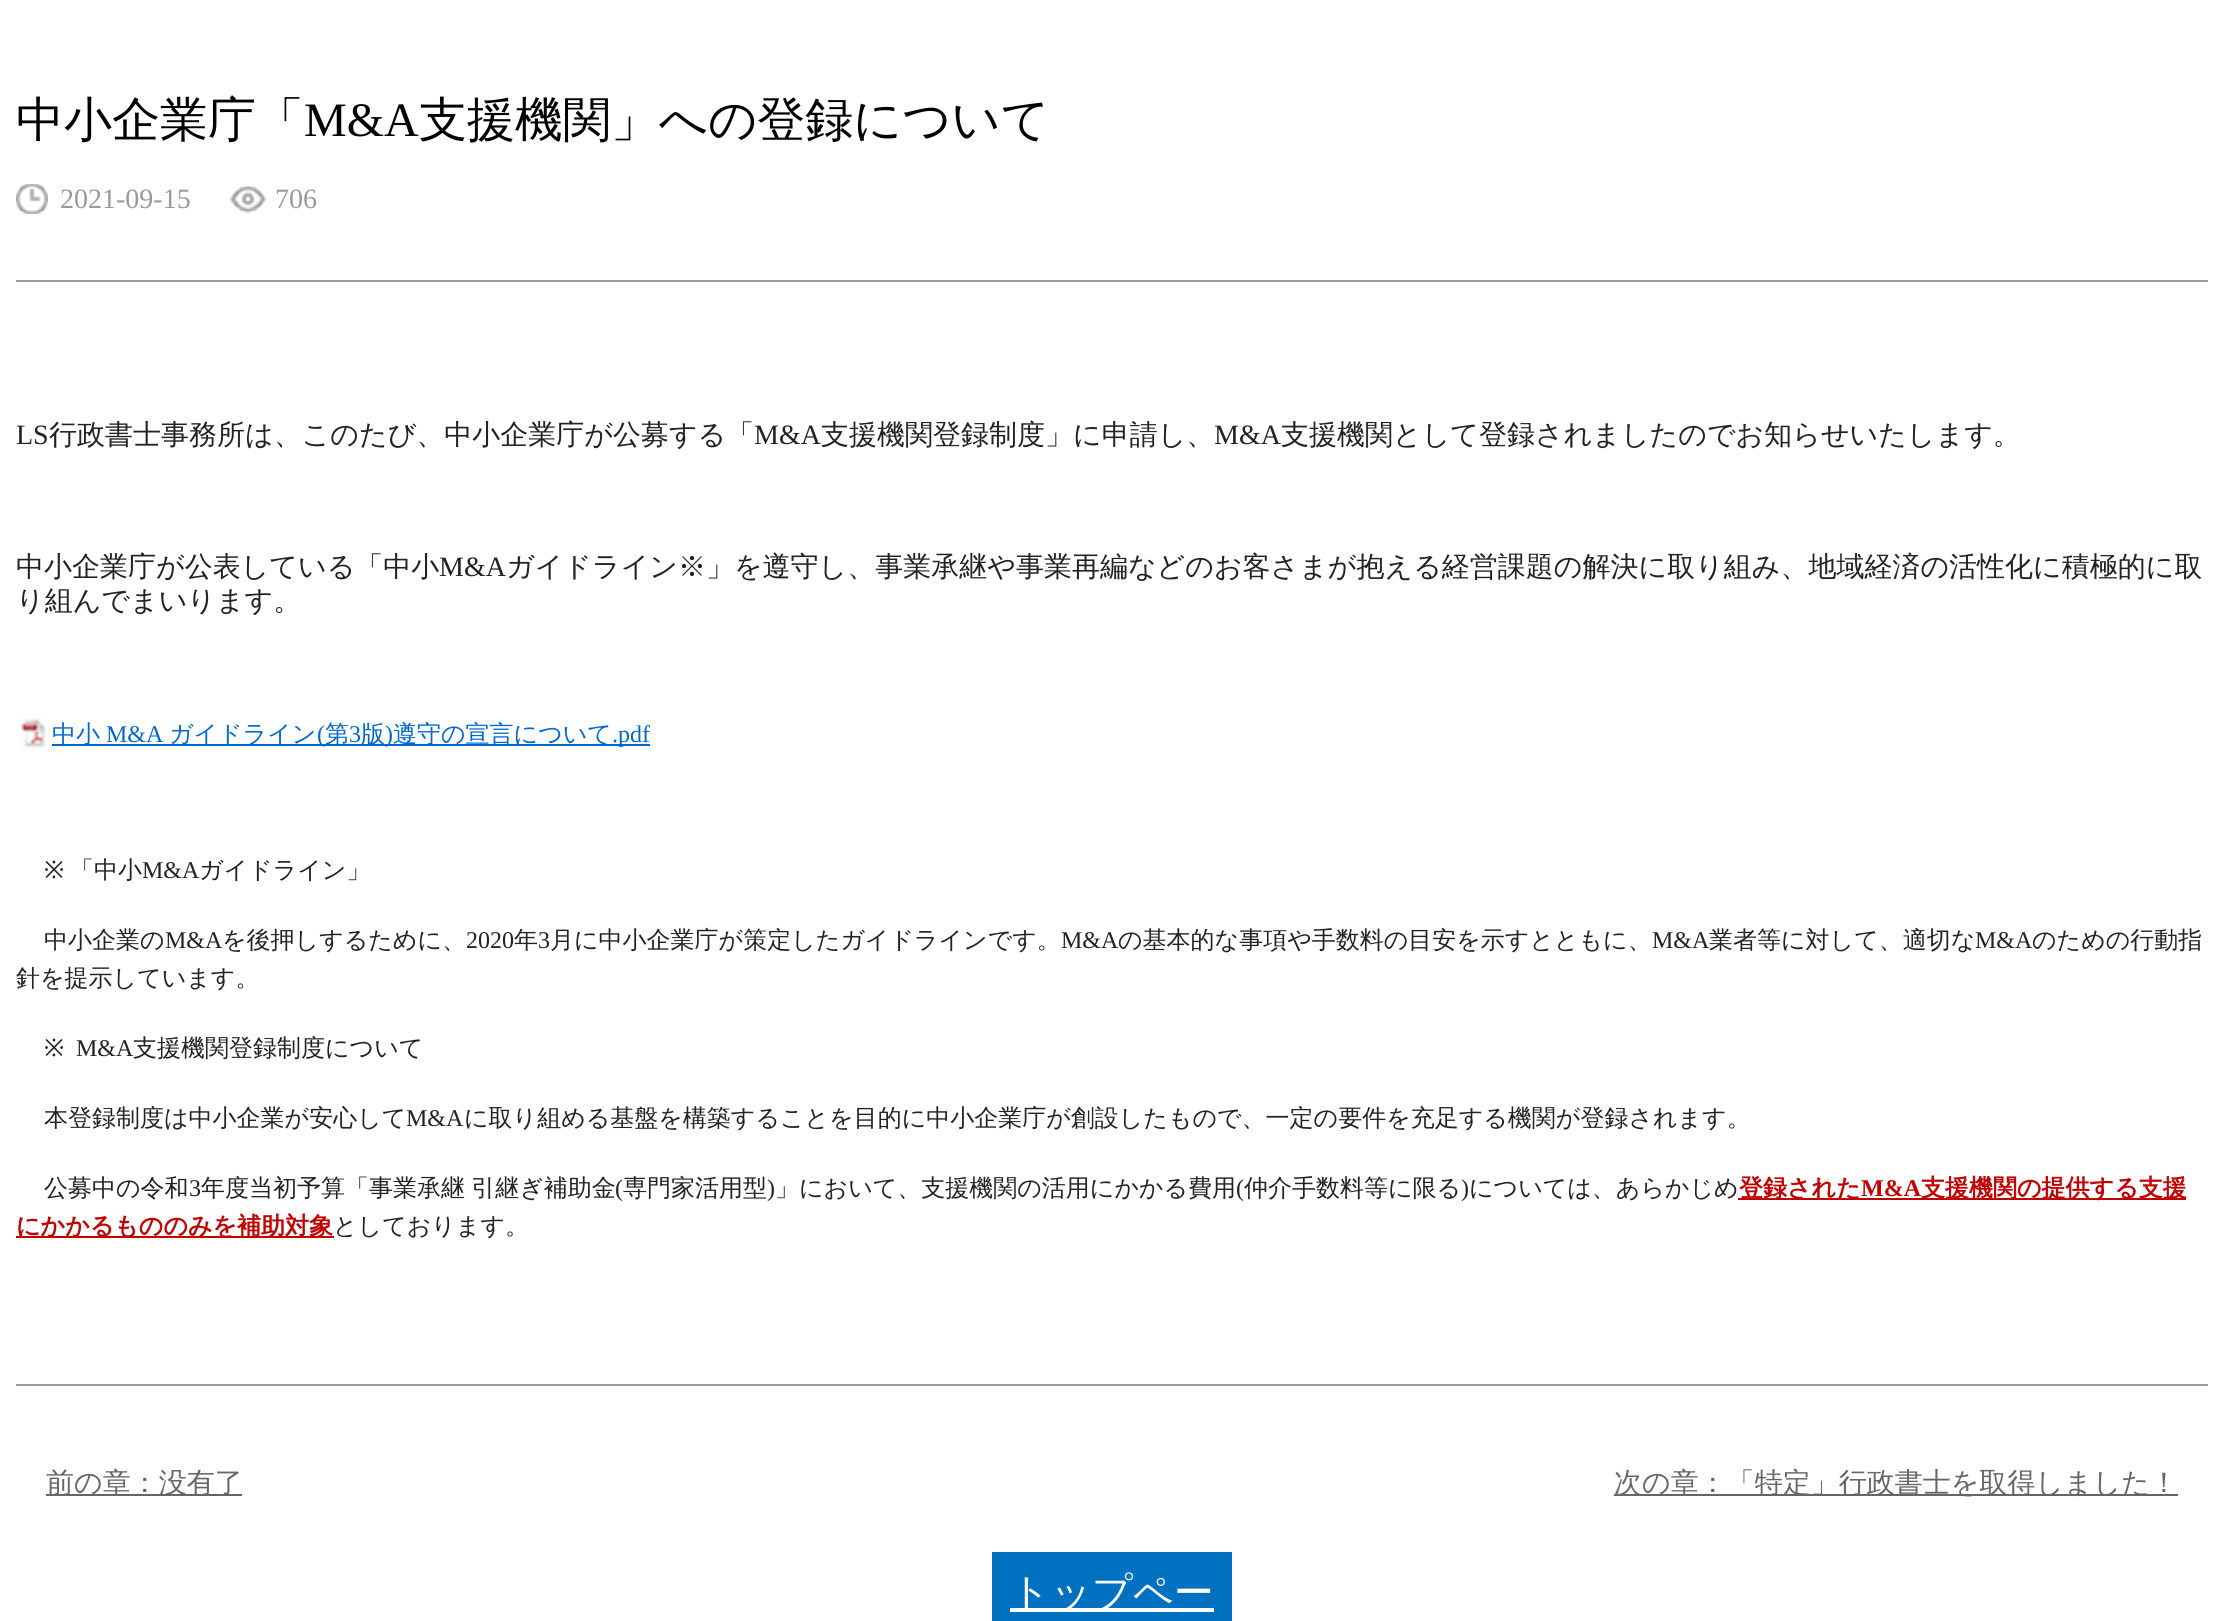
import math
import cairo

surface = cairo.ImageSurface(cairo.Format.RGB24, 2224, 1621)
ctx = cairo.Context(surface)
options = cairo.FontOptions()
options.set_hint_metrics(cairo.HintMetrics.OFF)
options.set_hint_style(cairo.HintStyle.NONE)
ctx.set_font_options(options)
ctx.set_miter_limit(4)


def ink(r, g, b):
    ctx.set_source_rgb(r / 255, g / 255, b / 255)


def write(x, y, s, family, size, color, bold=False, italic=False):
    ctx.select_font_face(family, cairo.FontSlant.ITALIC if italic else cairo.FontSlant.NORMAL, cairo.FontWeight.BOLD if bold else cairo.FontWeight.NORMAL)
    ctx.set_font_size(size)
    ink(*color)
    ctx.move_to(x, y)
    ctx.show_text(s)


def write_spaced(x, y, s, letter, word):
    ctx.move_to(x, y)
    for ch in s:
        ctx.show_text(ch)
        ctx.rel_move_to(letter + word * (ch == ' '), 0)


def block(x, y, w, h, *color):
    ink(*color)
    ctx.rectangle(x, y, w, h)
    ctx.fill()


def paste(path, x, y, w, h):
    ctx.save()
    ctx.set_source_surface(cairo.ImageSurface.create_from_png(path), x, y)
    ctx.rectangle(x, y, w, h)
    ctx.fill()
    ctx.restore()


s1 = dict(family="WenQuanYi Zen Hei Medium", size=48, color=(0, 0, 0))
s2 = dict(family="Liberation Serif", size=48, color=(0, 0, 0))
s3 = dict(family="Liberation Serif", size=28, color=(153, 153, 153))
s4 = dict(family="Liberation Serif", size=28, color=(34, 34, 34))
s5 = dict(family="WenQuanYi Zen Hei Medium", size=28, color=(34, 34, 34))
s6 = dict(family="WenQuanYi Zen Hei Medium", size=24, color=(0, 102, 204))
s7 = dict(family="Liberation Serif", size=24, color=(0, 102, 204))
s8 = dict(family="Noto Sans", size=24, color=(34, 34, 34))
s9 = dict(family="WenQuanYi Zen Hei Medium", size=24, color=(34, 34, 34))
s10 = dict(family="Liberation Serif", size=24, color=(34, 34, 34))
s11 = dict(family="WenQuanYi Zen Hei", size=24, color=(192, 0, 0), bold=True)
s12 = dict(family="Liberation Serif", size=24, color=(192, 0, 0), bold=True)
s13 = dict(family="WenQuanYi Zen Hei Medium", size=28, color=(102, 102, 102))
s14 = dict(family="WenQuanYi Zen Hei Medium", size=40, color=(255, 255, 255))

ink(255, 255, 255)
ctx.paint()
write(16, 136, "中小企業庁「", **s1)
write(304, 136, "M&A", **s2)
write(419, 136, "支援機関」への登録について", **s1)
paste("pic1.png", 16, 184, 32, 30)
write(60, 208, "2021-09-15", **s3)
paste("pic2.png", 230, 185, 36, 29)
write(275, 208, "706", **s3)
block(16, 280, 2192, 2, 153, 153, 153)
block(16, 1384, 2192, 2, 153, 153, 153)
write(16, 444, "LS", **s4)
write(49, 444, "行政書士事務所は、このたび、中小企業庁が公募する「", **s5)
write(754, 444, "M&A", **s4)
write(821, 444, "支援機関登録制度」に申請し、", **s5)
write(1214, 444, "M&A", **s4)
write(1281, 444, "支援機関として登録されましたのでお知らせいたします。", **s5)
write(16, 576, "中小企業庁が公表している「中小", **s5)
write(439, 576, "M&A", **s4)
write(506, 576, "ガイドライン※」を遵守し、事業承継や事業再編などのお客さまが抱える経営課題の解決に取り組み、地域経済の活性化に積極的に取", **s5)
write(16, 610, "り組んでまいります。", **s5)
paste("pic3.png", 21, 718, 26, 31)
block(52, 744, 598, 2, 0, 102, 204)
write(52, 742, "中小", **s6)
write(106, 742, "M&A", **s7)
write(169, 742, "ガイドライン", **s6)
write(317, 742, "(", **s7)
write(325, 742, "第", **s6)
write(349, 742, "3", **s7)
write(361, 742, "版", **s6)
write(385, 742, ")", **s7)
write(393, 742, "遵守の宣言について", **s6)
write(612, 742, ".pdf", **s7)
write(44, 878, "※", **s8)
write(70, 878, "「中小", **s9)
write(142, 878, "M&A", **s10)
write(199, 878, "ガイドライン」", **s9)
write(44, 948, "中小企業の", **s9)
write(165, 948, "M&A", **s10)
write(222, 948, "を後押しするために、", **s9)
write(466, 948, "2020", **s10)
write(514, 948, "年", **s9)
write(538, 948, "3", **s10)
write(550, 948, "月に中小企業庁が策定したガイドラインです。", **s9)
write(1061, 948, "M&A", **s10)
write(1118, 948, "の基本的な事項や手数料の目安を示すとともに、", **s9)
write(1652, 948, "M&A", **s10)
write(1709, 948, "業者等に対して、適切な", **s9)
write(1975, 948, "M&A", **s10)
write(2032, 948, "のための行動指", **s9)
write(16, 986, "針を提示しています。", **s9)
write(44, 1056, "※", **s8)
write(76, 1056, "M&A", **s10)
write(133, 1056, "支援機関登録制度について", **s9)
write(44, 1126, "本登録制度は中小企業が安心して", **s9)
write(406, 1126, "M&A", **s10)
write(464, 1126, "に取り組める基盤を構築することを目的に中小企業庁が創設したもので、一定の要件を充足する機関が登録されます。", **s9)
write(44, 1196, "公募中の令和", **s9)
write(189, 1196, "3", **s10)
ctx.select_font_face("WenQuanYi Zen Hei Medium")
write_spaced(201, 1196, "年度当初予算「事業承継 引継ぎ補助金", 0, -1)
write(615, 1196, "(", **s10)
write(623, 1196, "専門家活用型", **s9)
write(767, 1196, ")", **s10)
write(775, 1196, "」において、支援機関の活用にかかる費用", **s9)
write(1236, 1196, "(", **s10)
write(1244, 1196, "仲介手数料等に限る", **s9)
write(1461, 1196, ")", **s10)
write(1469, 1196, "については、あらかじめ", **s9)
block(1738, 1198, 448, 2, 192, 0, 0)
write(1739, 1196, "登録された", **s11)
write(1861, 1196, "M&A", **s12)
write(1921, 1196, "支援機関の提供する支援", **s11)
block(16, 1236, 318, 2, 192, 0, 0)
write(16, 1234, "にかかるもののみを補助対象", **s11)
write(333, 1234, "としております。", **s9)
block(46, 1494, 196, 2, 102, 102, 102)
write(46, 1492, "前の章：没有了", **s13)
block(1614, 1494, 564, 2, 102, 102, 102)
write(1614, 1492, "次の章：「特定」行政書士を取得しました！", **s13)
block(992, 1552, 240, 69, 0, 112, 192)
block(1010, 1608, 204, 4, 255, 255, 255)
write(1010, 1606, "トップペー", **s14)
surface.write_to_png("screenshot.png")
